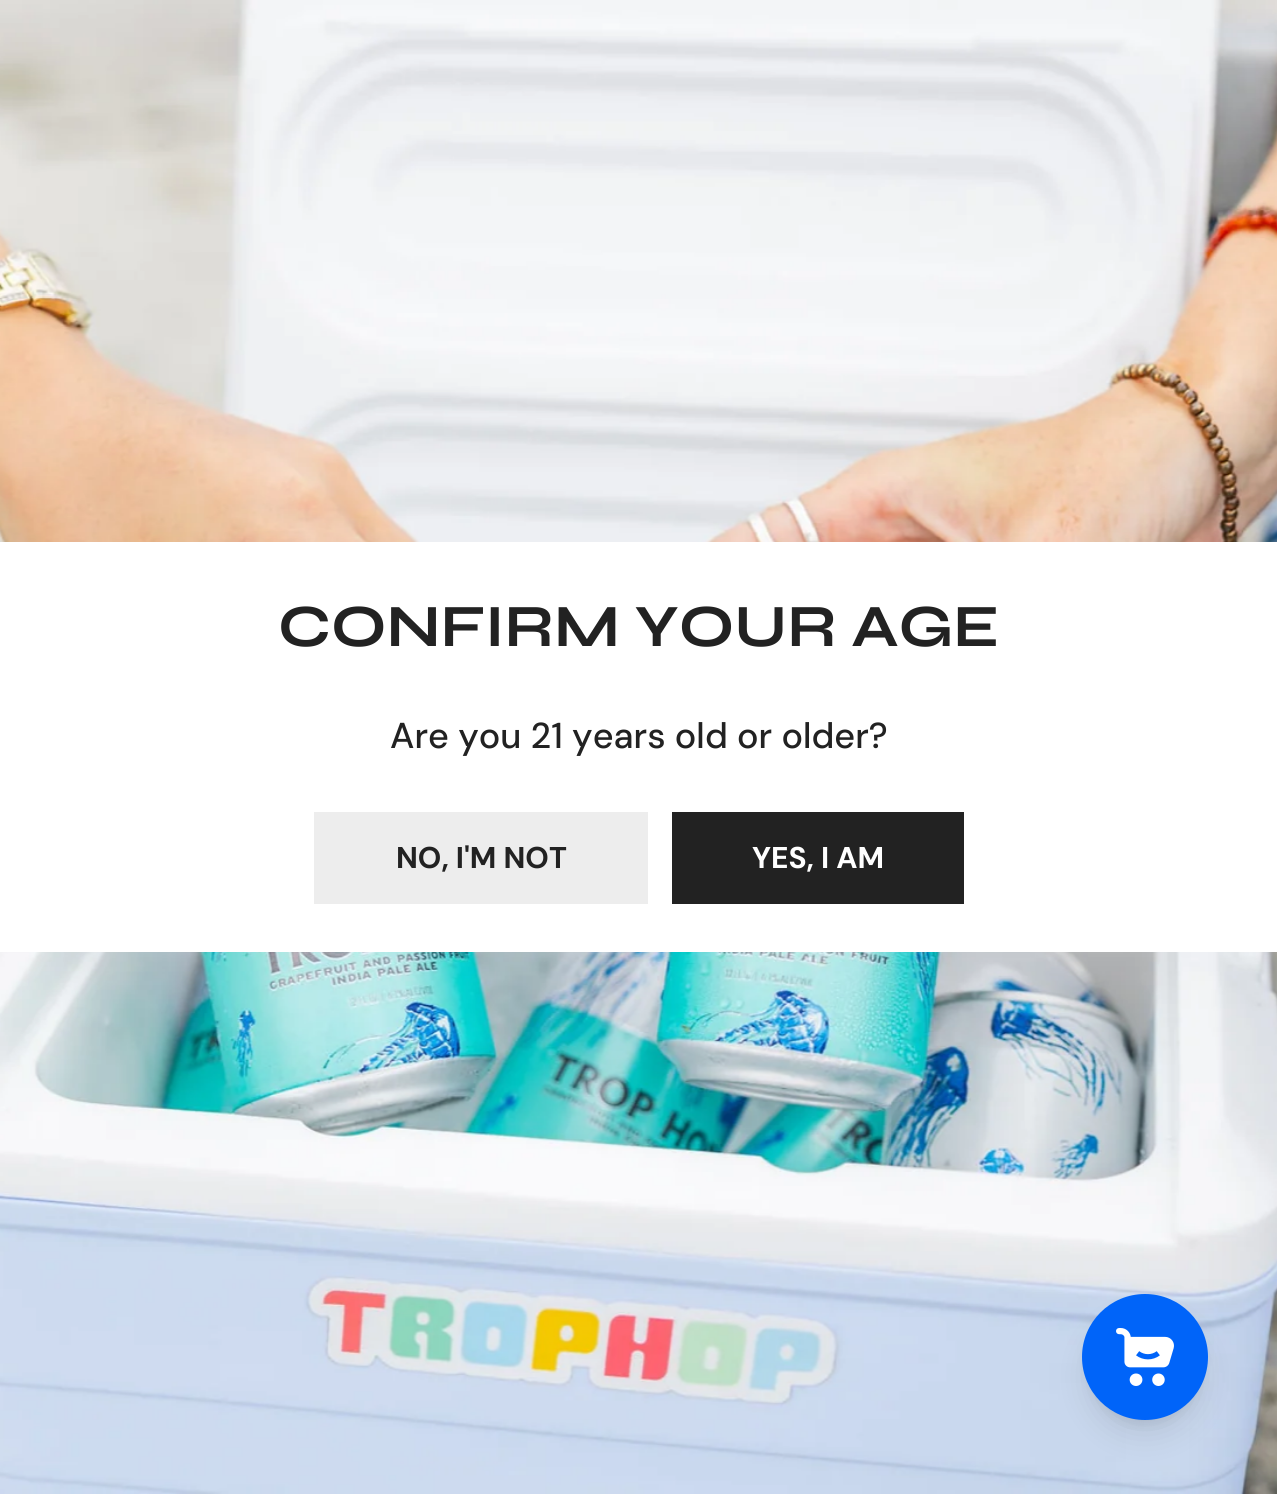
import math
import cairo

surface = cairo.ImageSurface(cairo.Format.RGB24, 1277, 1494)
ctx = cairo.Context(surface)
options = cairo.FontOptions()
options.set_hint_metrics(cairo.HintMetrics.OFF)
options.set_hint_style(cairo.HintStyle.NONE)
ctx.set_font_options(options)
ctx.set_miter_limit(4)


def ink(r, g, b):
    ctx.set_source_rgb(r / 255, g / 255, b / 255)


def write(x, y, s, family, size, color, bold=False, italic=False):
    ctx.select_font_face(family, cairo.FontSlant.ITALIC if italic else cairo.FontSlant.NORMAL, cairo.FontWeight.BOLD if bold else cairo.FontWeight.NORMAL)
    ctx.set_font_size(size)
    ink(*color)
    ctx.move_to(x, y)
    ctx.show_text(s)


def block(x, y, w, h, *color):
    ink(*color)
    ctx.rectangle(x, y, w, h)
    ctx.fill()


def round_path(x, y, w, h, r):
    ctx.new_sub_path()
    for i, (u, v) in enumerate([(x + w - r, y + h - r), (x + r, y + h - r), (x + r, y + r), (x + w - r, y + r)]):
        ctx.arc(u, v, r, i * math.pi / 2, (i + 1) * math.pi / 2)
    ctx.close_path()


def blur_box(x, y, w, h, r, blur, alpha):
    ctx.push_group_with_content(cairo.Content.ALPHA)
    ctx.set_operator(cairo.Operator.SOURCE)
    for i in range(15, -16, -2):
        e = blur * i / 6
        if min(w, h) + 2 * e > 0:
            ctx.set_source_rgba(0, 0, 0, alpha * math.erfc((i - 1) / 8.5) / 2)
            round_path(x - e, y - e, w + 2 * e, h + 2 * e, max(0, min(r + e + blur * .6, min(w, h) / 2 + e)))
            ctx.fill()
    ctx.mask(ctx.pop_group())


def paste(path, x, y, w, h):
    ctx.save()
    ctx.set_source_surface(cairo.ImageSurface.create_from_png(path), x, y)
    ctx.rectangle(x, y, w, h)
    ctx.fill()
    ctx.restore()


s1 = dict(family="Syne", size=60, color=(34, 34, 34), bold=True)
s2 = dict(family="DM Sans Medium", size=36, color=(34, 34, 34))
s3 = dict(family="DM Sans", size=30, color=(34, 34, 34), bold=True)
s4 = dict(family="DM Sans", size=30, color=(255, 255, 255), bold=True)

ink(255, 255, 255)
ctx.paint()
ink(0, 0, 0)
blur_box(-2, 1358, 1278, 132, 0, 10, 0.08)
paste("pic1.png", 0, 0, 1277, 1494)
block(0, 542, 1277, 410, 255, 255, 255)
write(278, 646, "CONFIRM YOUR AGE", **s1)
write(390, 748, "Are you 21 years old or older?", **s2)
block(314, 812, 334, 92, 237, 237, 237)
write(396, 868, "NO, I'M NOT", **s3)
block(672, 812, 292, 92, 34, 34, 34)
write(752, 868, "YES, I AM", **s4)
ink(0, 0, 0)
blur_box(1090, 1310, 110, 110, 55, 6, 0.1)
blur_box(1088, 1320, 114, 114, 57, 15, 0.1)
ink(0, 100, 249)
ctx.arc(1145, 1357, 63, 0, 2 * math.pi)
ctx.fill()
paste("pic2.png", 1116, 1328, 58, 58)
surface.write_to_png("screenshot.png")
